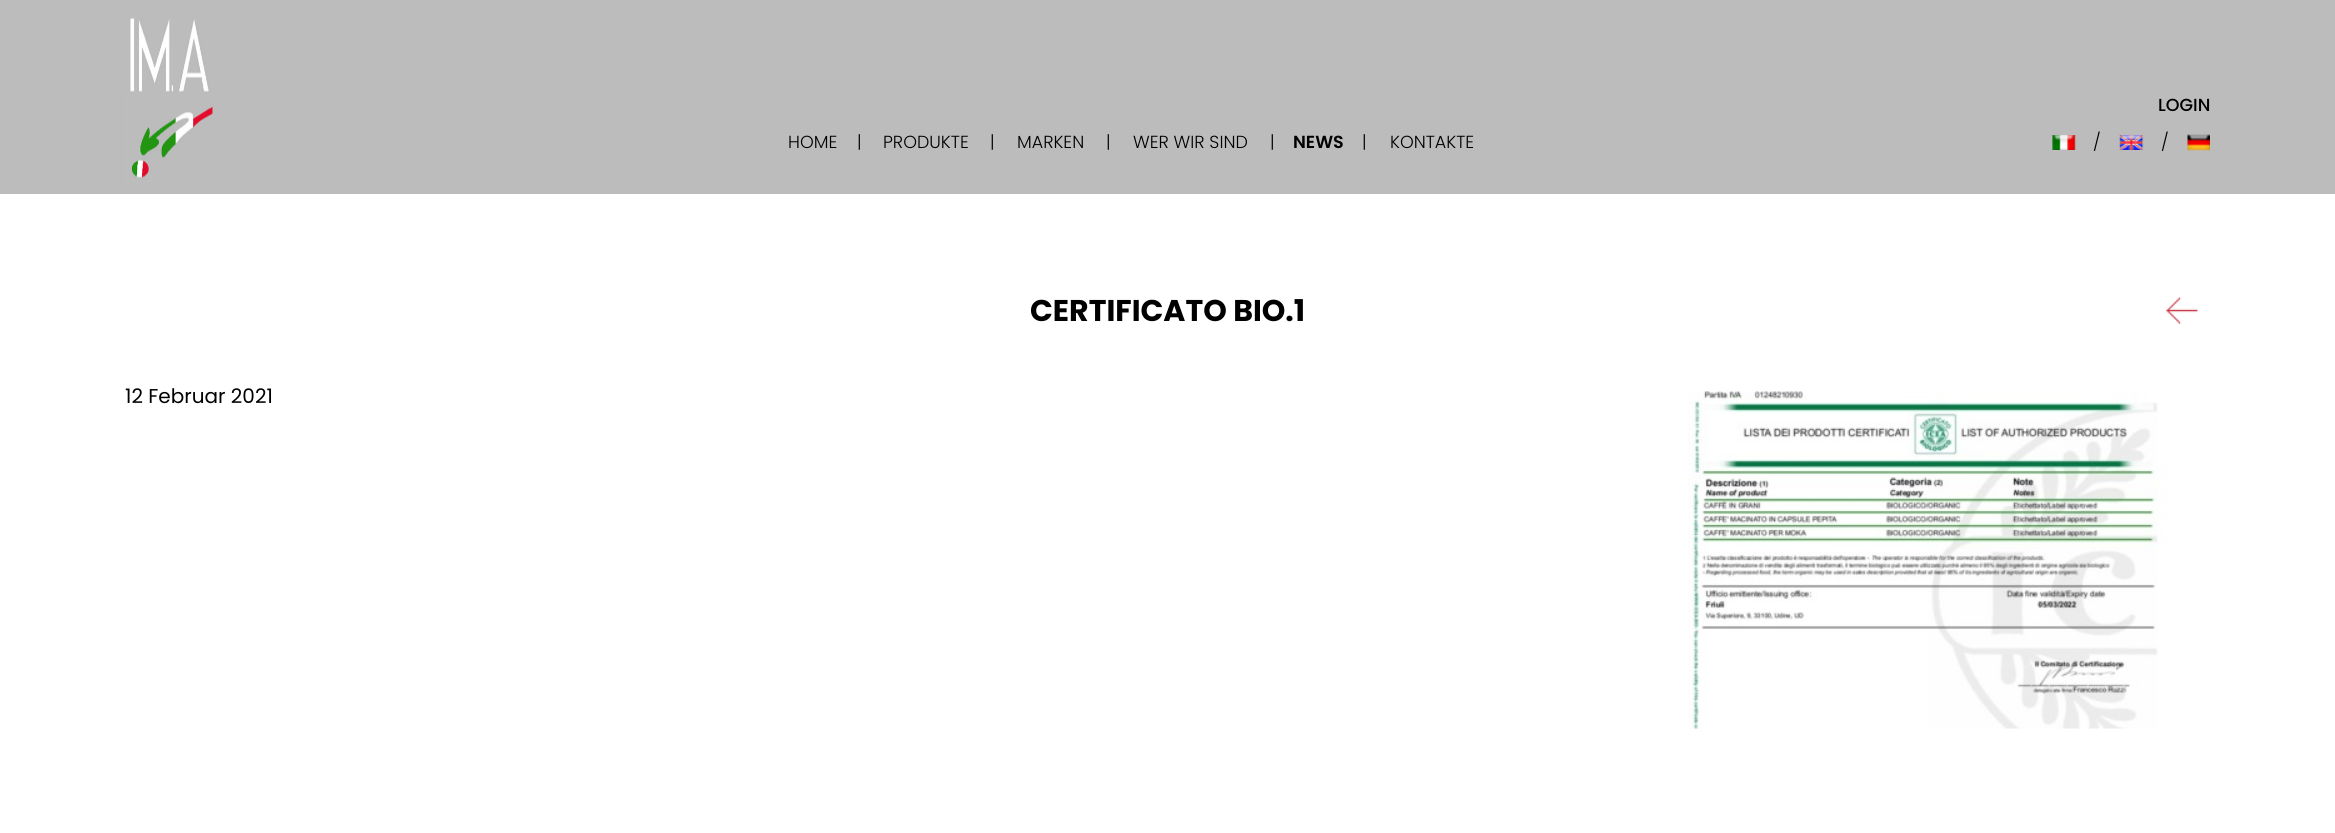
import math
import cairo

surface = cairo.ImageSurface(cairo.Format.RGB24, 2335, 833)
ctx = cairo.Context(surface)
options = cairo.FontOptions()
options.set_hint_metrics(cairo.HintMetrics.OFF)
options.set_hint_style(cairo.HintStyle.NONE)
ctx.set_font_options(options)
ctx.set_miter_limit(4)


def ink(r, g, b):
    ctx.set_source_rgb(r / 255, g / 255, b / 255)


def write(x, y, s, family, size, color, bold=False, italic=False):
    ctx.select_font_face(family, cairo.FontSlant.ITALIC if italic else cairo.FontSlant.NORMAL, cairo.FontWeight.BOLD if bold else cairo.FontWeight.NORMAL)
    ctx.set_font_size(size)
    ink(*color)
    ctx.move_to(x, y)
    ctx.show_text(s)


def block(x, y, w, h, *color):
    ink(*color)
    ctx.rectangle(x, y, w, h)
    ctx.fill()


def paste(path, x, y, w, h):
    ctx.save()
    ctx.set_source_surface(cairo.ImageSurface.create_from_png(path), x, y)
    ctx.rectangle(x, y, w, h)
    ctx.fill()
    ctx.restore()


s1 = dict(family="Poppins Light", size=17.5, color=(0, 0, 0))
s2 = dict(family="Poppins SemiBold", size=17.5, color=(0, 0, 0))
s3 = dict(family="Poppins Medium", size=17.5, color=(0, 0, 0))
s4 = dict(family="Poppins", size=30, color=(0, 0, 0), bold=True)
s5 = dict(family="Poppins", size=20, color=(0, 0, 0))

ink(255, 255, 255)
ctx.paint()
block(0, 0, 2335, 194, 188, 188, 188)
paste("pic1.png", 125, 18, 88, 164)
write(788, 148, "HOME", **s1)
write(857, 148, "|", **s1)
write(883, 148, "PRODUKTE", **s1)
write(990, 148, "|", **s1)
write(1017, 148, "MARKEN", **s1)
write(1106, 148, "|", **s1)
write(1133, 148, "WER WIR SIND", **s1)
write(1270, 148, "|", **s1)
write(1293, 148, "NEWS", **s2)
write(1362, 148, "|", **s1)
write(1390, 148, "KONTAKTE", **s1)
write(2158, 111, "LOGIN", **s3)
paste("pic2.png", 2052, 135, 24, 15)
write(2093, 148, "/", **s1)
paste("pic3.png", 2119, 135, 25, 15)
write(2161, 148, "/", **s1)
paste("pic4.png", 2187, 134, 23, 17)
write(1030, 321, "CERTIFICATO BIO.1", **s4)
paste("pic5.png", 2166, 297, 32, 27)
write(125, 403, "12 Februar 2021", **s5)
paste("pic6.png", 1688, 391, 479, 338)
surface.write_to_png("screenshot.png")
